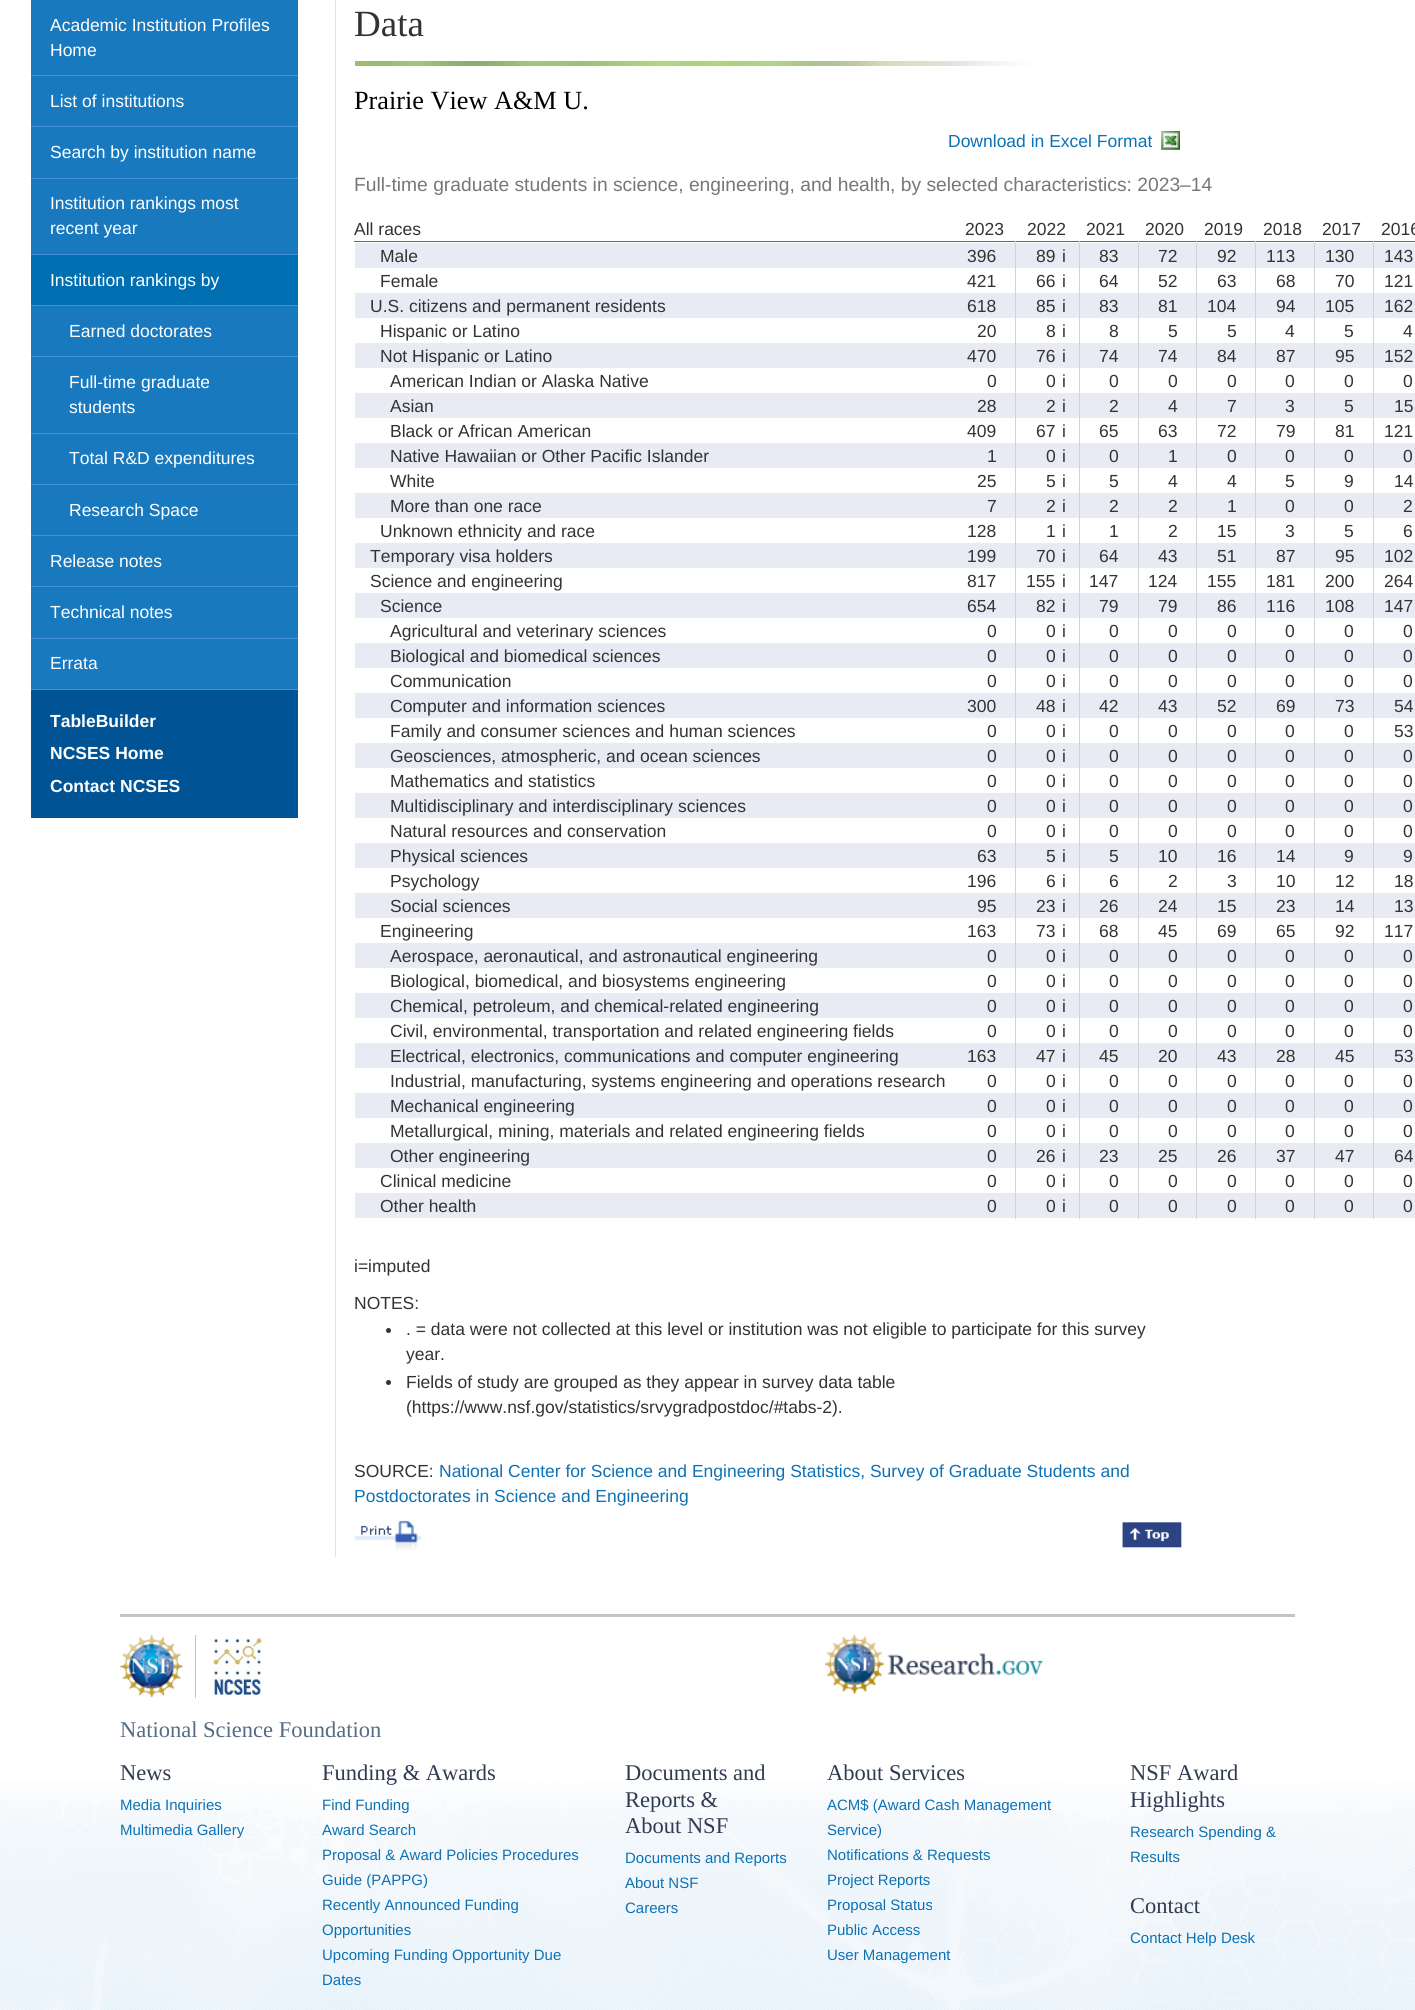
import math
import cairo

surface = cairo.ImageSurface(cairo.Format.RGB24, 1415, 2010)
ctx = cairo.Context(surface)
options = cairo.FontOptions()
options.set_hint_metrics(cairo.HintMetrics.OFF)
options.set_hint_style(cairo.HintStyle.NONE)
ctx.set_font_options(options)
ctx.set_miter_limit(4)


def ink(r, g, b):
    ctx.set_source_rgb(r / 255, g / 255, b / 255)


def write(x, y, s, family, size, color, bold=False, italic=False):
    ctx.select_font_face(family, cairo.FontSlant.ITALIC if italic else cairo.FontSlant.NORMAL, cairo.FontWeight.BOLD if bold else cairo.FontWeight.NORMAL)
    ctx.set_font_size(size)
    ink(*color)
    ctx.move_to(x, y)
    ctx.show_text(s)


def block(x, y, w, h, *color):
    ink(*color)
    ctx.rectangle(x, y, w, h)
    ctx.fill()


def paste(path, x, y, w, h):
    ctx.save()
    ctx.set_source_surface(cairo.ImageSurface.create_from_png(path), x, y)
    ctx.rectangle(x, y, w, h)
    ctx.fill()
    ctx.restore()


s1 = dict(family="Liberation Sans", size=17.5, color=(255, 255, 255))
s2 = dict(family="Liberation Sans", size=17.5, color=(255, 255, 255), bold=True)
s3 = dict(family="Liberation Serif", size=37, color=(51, 51, 51))
s4 = dict(family="Liberation Serif", size=26.25, color=(0, 0, 0))
s5 = dict(family="Liberation Sans", size=17.5, color=(12, 114, 181))
s6 = dict(family="Liberation Sans", size=19.25, color=(119, 119, 119))
s7 = dict(family="Liberation Sans", size=17.5, color=(51, 51, 51))
s8 = dict(family="Liberation Serif", size=22.5, color=(85, 107, 133))
s9 = dict(family="Liberation Serif", size=22.5, color=(48, 59, 83))
s10 = dict(family="Liberation Sans", size=15, color=(12, 114, 181))

ink(255, 255, 255)
ctx.paint()
block(31, 0, 267, 75, 24, 121, 190)
block(31, 75, 267, 1, 67, 145, 215)
write(50, 31, "Academic Institution Profiles", **s1)
write(50, 56, "Home", **s1)
block(31, 76, 267, 102, 24, 121, 190)
block(31, 126, 267, 1, 67, 145, 215)
write(50, 107, "List of institutions", **s1)
block(31, 178, 267, 1, 67, 145, 215)
write(50, 158, "Search by institution name", **s1)
block(31, 179, 267, 75, 24, 121, 190)
block(31, 254, 267, 1, 67, 145, 215)
write(50, 209, "Institution rankings most", **s1)
write(50, 234, "recent year", **s1)
block(31, 255, 267, 50, 0, 111, 178)
block(31, 305, 267, 1, 67, 145, 215)
write(50, 286, "Institution rankings by", **s1)
block(31, 306, 267, 127, 24, 121, 190)
block(31, 356, 267, 1, 67, 145, 215)
write(69, 337, "Earned doctorates", **s1)
block(31, 433, 267, 1, 67, 145, 215)
write(69, 388, "Full-time graduate", **s1)
write(69, 413, "students", **s1)
block(31, 434, 267, 50, 24, 121, 190)
block(31, 484, 267, 1, 67, 145, 215)
write(69, 464, "Total R&D expenditures", **s1)
block(31, 485, 267, 50, 24, 121, 190)
block(31, 535, 267, 1, 67, 145, 215)
write(69, 516, "Research Space", **s1)
block(31, 536, 267, 102, 24, 121, 190)
block(31, 586, 267, 1, 67, 145, 215)
write(50, 567, "Release notes", **s1)
block(31, 638, 267, 1, 67, 145, 215)
write(50, 618, "Technical notes", **s1)
block(31, 639, 267, 50, 24, 121, 190)
block(31, 689, 267, 1, 67, 145, 215)
write(50, 669, "Errata", **s1)
block(31, 690, 267, 128, 0, 84, 149)
write(50, 727, "TableBuilder", **s2)
write(50, 759, "NCSES Home", **s2)
write(50, 792, "Contact NCSES", **s2)
ink(226, 226, 226)
ctx.new_path()
ctx.move_to(335, 1558)
ctx.line_to(335, -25)
ctx.line_to(336, -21)
ctx.line_to(336, 1556)
ctx.close_path()
ctx.fill()
write(354, 36, "Data", **s3)
paste("pic1.png", 355, 61, 675, 5)
write(354, 109, "Prairie View A&M U.", **s4)
write(948, 147, "Download in Excel Format", **s5)
paste("pic2.png", 1161, 131, 19, 19)
write(354, 191, "Full-time graduate students in science, engineering, and health, by selected characteristics: 2023–14", **s6)
write(354, 235, "All races", **s7)
write(965, 235, "2023", **s7)
write(1027, 235, "2022", **s7)
write(1086, 235, "2021", **s7)
write(1145, 235, "2020", **s7)
write(1204, 235, "2019", **s7)
write(1263, 235, "2018", **s7)
write(1322, 235, "2017", **s7)
write(1381, 235, "2016", **s7)
block(354, 241, 1061, 1, 102, 102, 102)
block(355, 243, 660, 25, 232, 235, 243)
write(380, 262, "Male", **s7)
write(967, 262, "396", **s7)
block(1015, 268, 1, 951, 211, 211, 211)
block(1015, 241, 1, 28, 211, 211, 211)
block(1016, 243, 63, 25, 232, 235, 243)
write(1036, 262, "89", **s7)
block(1079, 268, 1, 951, 211, 211, 211)
block(1079, 241, 1, 28, 211, 211, 211)
write(1062, 262, "i", **s7)
block(1080, 243, 58, 25, 232, 235, 243)
write(1099, 262, "83", **s7)
block(1138, 268, 1, 951, 211, 211, 211)
block(1138, 241, 1, 28, 211, 211, 211)
block(1139, 243, 57, 25, 232, 235, 243)
write(1158, 262, "72", **s7)
block(1196, 268, 1, 951, 211, 211, 211)
block(1196, 241, 1, 28, 211, 211, 211)
block(1197, 243, 58, 25, 232, 235, 243)
write(1217, 262, "92", **s7)
block(1255, 268, 1, 951, 211, 211, 211)
block(1255, 241, 1, 28, 211, 211, 211)
block(1256, 243, 58, 25, 232, 235, 243)
write(1266, 262, "113", **s7)
block(1314, 268, 1, 951, 211, 211, 211)
block(1314, 241, 1, 28, 211, 211, 211)
block(1315, 243, 58, 25, 232, 235, 243)
write(1325, 262, "130", **s7)
block(1373, 268, 1, 951, 211, 211, 211)
block(1373, 241, 1, 28, 211, 211, 211)
block(1374, 243, 41, 25, 232, 235, 243)
write(1384, 262, "143", **s7)
write(380, 287, "Female", **s7)
write(967, 287, "421", **s7)
write(1036, 287, "66", **s7)
write(1062, 287, "i", **s7)
write(1099, 287, "64", **s7)
write(1158, 287, "52", **s7)
write(1217, 287, "63", **s7)
write(1276, 287, "68", **s7)
write(1335, 287, "70", **s7)
write(1384, 287, "121", **s7)
block(355, 293, 660, 25, 232, 235, 243)
write(370, 312, "U.S. citizens and permanent residents", **s7)
write(967, 312, "618", **s7)
block(1016, 293, 63, 25, 232, 235, 243)
write(1036, 312, "85", **s7)
write(1062, 312, "i", **s7)
block(1080, 293, 58, 25, 232, 235, 243)
write(1099, 312, "83", **s7)
block(1139, 293, 57, 25, 232, 235, 243)
write(1158, 312, "81", **s7)
block(1197, 293, 58, 25, 232, 235, 243)
write(1207, 312, "104", **s7)
block(1256, 293, 58, 25, 232, 235, 243)
write(1276, 312, "94", **s7)
block(1315, 293, 58, 25, 232, 235, 243)
write(1325, 312, "105", **s7)
block(1374, 293, 41, 25, 232, 235, 243)
write(1384, 312, "162", **s7)
write(380, 337, "Hispanic or Latino", **s7)
write(977, 337, "20", **s7)
write(1046, 337, "8", **s7)
write(1062, 337, "i", **s7)
write(1109, 337, "8", **s7)
write(1168, 337, "5", **s7)
write(1227, 337, "5", **s7)
write(1285, 337, "4", **s7)
write(1344, 337, "5", **s7)
write(1403, 337, "4", **s7)
block(355, 343, 660, 25, 232, 235, 243)
write(380, 362, "Not Hispanic or Latino", **s7)
write(967, 362, "470", **s7)
block(1016, 343, 63, 25, 232, 235, 243)
write(1036, 362, "76", **s7)
write(1062, 362, "i", **s7)
block(1080, 343, 58, 25, 232, 235, 243)
write(1099, 362, "74", **s7)
block(1139, 343, 57, 25, 232, 235, 243)
write(1158, 362, "74", **s7)
block(1197, 343, 58, 25, 232, 235, 243)
write(1217, 362, "84", **s7)
block(1256, 343, 58, 25, 232, 235, 243)
write(1276, 362, "87", **s7)
block(1315, 343, 58, 25, 232, 235, 243)
write(1335, 362, "95", **s7)
block(1374, 343, 41, 25, 232, 235, 243)
write(1384, 362, "152", **s7)
write(390, 387, "American Indian or Alaska Native", **s7)
write(987, 387, "0", **s7)
write(1046, 387, "0", **s7)
write(1062, 387, "i", **s7)
write(1109, 387, "0", **s7)
write(1168, 387, "0", **s7)
write(1227, 387, "0", **s7)
write(1285, 387, "0", **s7)
write(1344, 387, "0", **s7)
write(1403, 387, "0", **s7)
block(355, 393, 660, 25, 232, 235, 243)
write(390, 412, "Asian", **s7)
write(977, 412, "28", **s7)
block(1016, 393, 63, 25, 232, 235, 243)
write(1046, 412, "2", **s7)
write(1062, 412, "i", **s7)
block(1080, 393, 58, 25, 232, 235, 243)
write(1109, 412, "2", **s7)
block(1139, 393, 57, 25, 232, 235, 243)
write(1168, 412, "4", **s7)
block(1197, 393, 58, 25, 232, 235, 243)
write(1227, 412, "7", **s7)
block(1256, 393, 58, 25, 232, 235, 243)
write(1285, 412, "3", **s7)
block(1315, 393, 58, 25, 232, 235, 243)
write(1344, 412, "5", **s7)
block(1374, 393, 41, 25, 232, 235, 243)
write(1394, 412, "15", **s7)
write(390, 437, "Black or African American", **s7)
write(967, 437, "409", **s7)
write(1036, 437, "67", **s7)
write(1062, 437, "i", **s7)
write(1099, 437, "65", **s7)
write(1158, 437, "63", **s7)
write(1217, 437, "72", **s7)
write(1276, 437, "79", **s7)
write(1335, 437, "81", **s7)
write(1384, 437, "121", **s7)
block(355, 443, 660, 25, 232, 235, 243)
write(390, 462, "Native Hawaiian or Other Pacific Islander", **s7)
write(987, 462, "1", **s7)
block(1016, 443, 63, 25, 232, 235, 243)
write(1046, 462, "0", **s7)
write(1062, 462, "i", **s7)
block(1080, 443, 58, 25, 232, 235, 243)
write(1109, 462, "0", **s7)
block(1139, 443, 57, 25, 232, 235, 243)
write(1168, 462, "1", **s7)
block(1197, 443, 58, 25, 232, 235, 243)
write(1227, 462, "0", **s7)
block(1256, 443, 58, 25, 232, 235, 243)
write(1285, 462, "0", **s7)
block(1315, 443, 58, 25, 232, 235, 243)
write(1344, 462, "0", **s7)
block(1374, 443, 41, 25, 232, 235, 243)
write(1403, 462, "0", **s7)
write(390, 487, "White", **s7)
write(977, 487, "25", **s7)
write(1046, 487, "5", **s7)
write(1062, 487, "i", **s7)
write(1109, 487, "5", **s7)
write(1168, 487, "4", **s7)
write(1227, 487, "4", **s7)
write(1285, 487, "5", **s7)
write(1344, 487, "9", **s7)
write(1394, 487, "14", **s7)
block(355, 493, 660, 25, 232, 235, 243)
write(390, 512, "More than one race", **s7)
write(987, 512, "7", **s7)
block(1016, 493, 63, 25, 232, 235, 243)
write(1046, 512, "2", **s7)
write(1062, 512, "i", **s7)
block(1080, 493, 58, 25, 232, 235, 243)
write(1109, 512, "2", **s7)
block(1139, 493, 57, 25, 232, 235, 243)
write(1168, 512, "2", **s7)
block(1197, 493, 58, 25, 232, 235, 243)
write(1227, 512, "1", **s7)
block(1256, 493, 58, 25, 232, 235, 243)
write(1285, 512, "0", **s7)
block(1315, 493, 58, 25, 232, 235, 243)
write(1344, 512, "0", **s7)
block(1374, 493, 41, 25, 232, 235, 243)
write(1403, 512, "2", **s7)
write(380, 537, "Unknown ethnicity and race", **s7)
write(967, 537, "128", **s7)
write(1046, 537, "1", **s7)
write(1062, 537, "i", **s7)
write(1109, 537, "1", **s7)
write(1168, 537, "2", **s7)
write(1217, 537, "15", **s7)
write(1285, 537, "3", **s7)
write(1344, 537, "5", **s7)
write(1403, 537, "6", **s7)
block(355, 543, 660, 25, 232, 235, 243)
write(370, 562, "Temporary visa holders", **s7)
write(967, 562, "199", **s7)
block(1016, 543, 63, 25, 232, 235, 243)
write(1036, 562, "70", **s7)
write(1062, 562, "i", **s7)
block(1080, 543, 58, 25, 232, 235, 243)
write(1099, 562, "64", **s7)
block(1139, 543, 57, 25, 232, 235, 243)
write(1158, 562, "43", **s7)
block(1197, 543, 58, 25, 232, 235, 243)
write(1217, 562, "51", **s7)
block(1256, 543, 58, 25, 232, 235, 243)
write(1276, 562, "87", **s7)
block(1315, 543, 58, 25, 232, 235, 243)
write(1335, 562, "95", **s7)
block(1374, 543, 41, 25, 232, 235, 243)
write(1384, 562, "102", **s7)
write(370, 587, "Science and engineering", **s7)
write(967, 587, "817", **s7)
write(1026, 587, "155", **s7)
write(1062, 587, "i", **s7)
write(1089, 587, "147", **s7)
write(1148, 587, "124", **s7)
write(1207, 587, "155", **s7)
write(1266, 587, "181", **s7)
write(1325, 587, "200", **s7)
write(1384, 587, "264", **s7)
block(355, 593, 660, 25, 232, 235, 243)
write(380, 612, "Science", **s7)
write(967, 612, "654", **s7)
block(1016, 593, 63, 25, 232, 235, 243)
write(1036, 612, "82", **s7)
write(1062, 612, "i", **s7)
block(1080, 593, 58, 25, 232, 235, 243)
write(1099, 612, "79", **s7)
block(1139, 593, 57, 25, 232, 235, 243)
write(1158, 612, "79", **s7)
block(1197, 593, 58, 25, 232, 235, 243)
write(1217, 612, "86", **s7)
block(1256, 593, 58, 25, 232, 235, 243)
write(1266, 612, "116", **s7)
block(1315, 593, 58, 25, 232, 235, 243)
write(1325, 612, "108", **s7)
block(1374, 593, 41, 25, 232, 235, 243)
write(1384, 612, "147", **s7)
write(390, 637, "Agricultural and veterinary sciences", **s7)
write(987, 637, "0", **s7)
write(1046, 637, "0", **s7)
write(1062, 637, "i", **s7)
write(1109, 637, "0", **s7)
write(1168, 637, "0", **s7)
write(1227, 637, "0", **s7)
write(1285, 637, "0", **s7)
write(1344, 637, "0", **s7)
write(1403, 637, "0", **s7)
block(355, 643, 660, 25, 232, 235, 243)
write(390, 662, "Biological and biomedical sciences", **s7)
write(987, 662, "0", **s7)
block(1016, 643, 63, 25, 232, 235, 243)
write(1046, 662, "0", **s7)
write(1062, 662, "i", **s7)
block(1080, 643, 58, 25, 232, 235, 243)
write(1109, 662, "0", **s7)
block(1139, 643, 57, 25, 232, 235, 243)
write(1168, 662, "0", **s7)
block(1197, 643, 58, 25, 232, 235, 243)
write(1227, 662, "0", **s7)
block(1256, 643, 58, 25, 232, 235, 243)
write(1285, 662, "0", **s7)
block(1315, 643, 58, 25, 232, 235, 243)
write(1344, 662, "0", **s7)
block(1374, 643, 41, 25, 232, 235, 243)
write(1403, 662, "0", **s7)
write(390, 687, "Communication", **s7)
write(987, 687, "0", **s7)
write(1046, 687, "0", **s7)
write(1062, 687, "i", **s7)
write(1109, 687, "0", **s7)
write(1168, 687, "0", **s7)
write(1227, 687, "0", **s7)
write(1285, 687, "0", **s7)
write(1344, 687, "0", **s7)
write(1403, 687, "0", **s7)
block(355, 693, 660, 25, 232, 235, 243)
write(390, 712, "Computer and information sciences", **s7)
write(967, 712, "300", **s7)
block(1016, 693, 63, 25, 232, 235, 243)
write(1036, 712, "48", **s7)
write(1062, 712, "i", **s7)
block(1080, 693, 58, 25, 232, 235, 243)
write(1099, 712, "42", **s7)
block(1139, 693, 57, 25, 232, 235, 243)
write(1158, 712, "43", **s7)
block(1197, 693, 58, 25, 232, 235, 243)
write(1217, 712, "52", **s7)
block(1256, 693, 58, 25, 232, 235, 243)
write(1276, 712, "69", **s7)
block(1315, 693, 58, 25, 232, 235, 243)
write(1335, 712, "73", **s7)
block(1374, 693, 41, 25, 232, 235, 243)
write(1394, 712, "54", **s7)
write(390, 737, "Family and consumer sciences and human sciences", **s7)
write(987, 737, "0", **s7)
write(1046, 737, "0", **s7)
write(1062, 737, "i", **s7)
write(1109, 737, "0", **s7)
write(1168, 737, "0", **s7)
write(1227, 737, "0", **s7)
write(1285, 737, "0", **s7)
write(1344, 737, "0", **s7)
write(1394, 737, "53", **s7)
block(355, 743, 660, 25, 232, 235, 243)
write(390, 762, "Geosciences, atmospheric, and ocean sciences", **s7)
write(987, 762, "0", **s7)
block(1016, 743, 63, 25, 232, 235, 243)
write(1046, 762, "0", **s7)
write(1062, 762, "i", **s7)
block(1080, 743, 58, 25, 232, 235, 243)
write(1109, 762, "0", **s7)
block(1139, 743, 57, 25, 232, 235, 243)
write(1168, 762, "0", **s7)
block(1197, 743, 58, 25, 232, 235, 243)
write(1227, 762, "0", **s7)
block(1256, 743, 58, 25, 232, 235, 243)
write(1285, 762, "0", **s7)
block(1315, 743, 58, 25, 232, 235, 243)
write(1344, 762, "0", **s7)
block(1374, 743, 41, 25, 232, 235, 243)
write(1403, 762, "0", **s7)
write(390, 787, "Mathematics and statistics", **s7)
write(987, 787, "0", **s7)
write(1046, 787, "0", **s7)
write(1062, 787, "i", **s7)
write(1109, 787, "0", **s7)
write(1168, 787, "0", **s7)
write(1227, 787, "0", **s7)
write(1285, 787, "0", **s7)
write(1344, 787, "0", **s7)
write(1403, 787, "0", **s7)
block(355, 793, 660, 25, 232, 235, 243)
write(390, 812, "Multidisciplinary and interdisciplinary sciences", **s7)
write(987, 812, "0", **s7)
block(1016, 793, 63, 25, 232, 235, 243)
write(1046, 812, "0", **s7)
write(1062, 812, "i", **s7)
block(1080, 793, 58, 25, 232, 235, 243)
write(1109, 812, "0", **s7)
block(1139, 793, 57, 25, 232, 235, 243)
write(1168, 812, "0", **s7)
block(1197, 793, 58, 25, 232, 235, 243)
write(1227, 812, "0", **s7)
block(1256, 793, 58, 25, 232, 235, 243)
write(1285, 812, "0", **s7)
block(1315, 793, 58, 25, 232, 235, 243)
write(1344, 812, "0", **s7)
block(1374, 793, 41, 25, 232, 235, 243)
write(1403, 812, "0", **s7)
write(390, 837, "Natural resources and conservation", **s7)
write(987, 837, "0", **s7)
write(1046, 837, "0", **s7)
write(1062, 837, "i", **s7)
write(1109, 837, "0", **s7)
write(1168, 837, "0", **s7)
write(1227, 837, "0", **s7)
write(1285, 837, "0", **s7)
write(1344, 837, "0", **s7)
write(1403, 837, "0", **s7)
block(355, 843, 660, 25, 232, 235, 243)
write(390, 862, "Physical sciences", **s7)
write(977, 862, "63", **s7)
block(1016, 843, 63, 25, 232, 235, 243)
write(1046, 862, "5", **s7)
write(1062, 862, "i", **s7)
block(1080, 843, 58, 25, 232, 235, 243)
write(1109, 862, "5", **s7)
block(1139, 843, 57, 25, 232, 235, 243)
write(1158, 862, "10", **s7)
block(1197, 843, 58, 25, 232, 235, 243)
write(1217, 862, "16", **s7)
block(1256, 843, 58, 25, 232, 235, 243)
write(1276, 862, "14", **s7)
block(1315, 843, 58, 25, 232, 235, 243)
write(1344, 862, "9", **s7)
block(1374, 843, 41, 25, 232, 235, 243)
write(1403, 862, "9", **s7)
write(390, 887, "Psychology", **s7)
write(967, 887, "196", **s7)
write(1046, 887, "6", **s7)
write(1062, 887, "i", **s7)
write(1109, 887, "6", **s7)
write(1168, 887, "2", **s7)
write(1227, 887, "3", **s7)
write(1276, 887, "10", **s7)
write(1335, 887, "12", **s7)
write(1394, 887, "18", **s7)
block(355, 893, 660, 25, 232, 235, 243)
write(390, 912, "Social sciences", **s7)
write(977, 912, "95", **s7)
block(1016, 893, 63, 25, 232, 235, 243)
write(1036, 912, "23", **s7)
write(1062, 912, "i", **s7)
block(1080, 893, 58, 25, 232, 235, 243)
write(1099, 912, "26", **s7)
block(1139, 893, 57, 25, 232, 235, 243)
write(1158, 912, "24", **s7)
block(1197, 893, 58, 25, 232, 235, 243)
write(1217, 912, "15", **s7)
block(1256, 893, 58, 25, 232, 235, 243)
write(1276, 912, "23", **s7)
block(1315, 893, 58, 25, 232, 235, 243)
write(1335, 912, "14", **s7)
block(1374, 893, 41, 25, 232, 235, 243)
write(1394, 912, "13", **s7)
write(380, 937, "Engineering", **s7)
write(967, 937, "163", **s7)
write(1036, 937, "73", **s7)
write(1062, 937, "i", **s7)
write(1099, 937, "68", **s7)
write(1158, 937, "45", **s7)
write(1217, 937, "69", **s7)
write(1276, 937, "65", **s7)
write(1335, 937, "92", **s7)
write(1384, 937, "117", **s7)
block(355, 943, 660, 25, 232, 235, 243)
write(390, 962, "Aerospace, aeronautical, and astronautical engineering", **s7)
write(987, 962, "0", **s7)
block(1016, 943, 63, 25, 232, 235, 243)
write(1046, 962, "0", **s7)
write(1062, 962, "i", **s7)
block(1080, 943, 58, 25, 232, 235, 243)
write(1109, 962, "0", **s7)
block(1139, 943, 57, 25, 232, 235, 243)
write(1168, 962, "0", **s7)
block(1197, 943, 58, 25, 232, 235, 243)
write(1227, 962, "0", **s7)
block(1256, 943, 58, 25, 232, 235, 243)
write(1285, 962, "0", **s7)
block(1315, 943, 58, 25, 232, 235, 243)
write(1344, 962, "0", **s7)
block(1374, 943, 41, 25, 232, 235, 243)
write(1403, 962, "0", **s7)
write(390, 987, "Biological, biomedical, and biosystems engineering", **s7)
write(987, 987, "0", **s7)
write(1046, 987, "0", **s7)
write(1062, 987, "i", **s7)
write(1109, 987, "0", **s7)
write(1168, 987, "0", **s7)
write(1227, 987, "0", **s7)
write(1285, 987, "0", **s7)
write(1344, 987, "0", **s7)
write(1403, 987, "0", **s7)
block(355, 993, 660, 25, 232, 235, 243)
write(390, 1012, "Chemical, petroleum, and chemical-related engineering", **s7)
write(987, 1012, "0", **s7)
block(1016, 993, 63, 25, 232, 235, 243)
write(1046, 1012, "0", **s7)
write(1062, 1012, "i", **s7)
block(1080, 993, 58, 25, 232, 235, 243)
write(1109, 1012, "0", **s7)
block(1139, 993, 57, 25, 232, 235, 243)
write(1168, 1012, "0", **s7)
block(1197, 993, 58, 25, 232, 235, 243)
write(1227, 1012, "0", **s7)
block(1256, 993, 58, 25, 232, 235, 243)
write(1285, 1012, "0", **s7)
block(1315, 993, 58, 25, 232, 235, 243)
write(1344, 1012, "0", **s7)
block(1374, 993, 41, 25, 232, 235, 243)
write(1403, 1012, "0", **s7)
write(390, 1037, "Civil, environmental, transportation and related engineering fields", **s7)
write(987, 1037, "0", **s7)
write(1046, 1037, "0", **s7)
write(1062, 1037, "i", **s7)
write(1109, 1037, "0", **s7)
write(1168, 1037, "0", **s7)
write(1227, 1037, "0", **s7)
write(1285, 1037, "0", **s7)
write(1344, 1037, "0", **s7)
write(1403, 1037, "0", **s7)
block(355, 1043, 660, 25, 232, 235, 243)
write(390, 1062, "Electrical, electronics, communications and computer engineering", **s7)
write(967, 1062, "163", **s7)
block(1016, 1043, 63, 25, 232, 235, 243)
write(1036, 1062, "47", **s7)
write(1062, 1062, "i", **s7)
block(1080, 1043, 58, 25, 232, 235, 243)
write(1099, 1062, "45", **s7)
block(1139, 1043, 57, 25, 232, 235, 243)
write(1158, 1062, "20", **s7)
block(1197, 1043, 58, 25, 232, 235, 243)
write(1217, 1062, "43", **s7)
block(1256, 1043, 58, 25, 232, 235, 243)
write(1276, 1062, "28", **s7)
block(1315, 1043, 58, 25, 232, 235, 243)
write(1335, 1062, "45", **s7)
block(1374, 1043, 41, 25, 232, 235, 243)
write(1394, 1062, "53", **s7)
write(390, 1087, "Industrial, manufacturing, systems engineering and operations research", **s7)
write(987, 1087, "0", **s7)
write(1046, 1087, "0", **s7)
write(1062, 1087, "i", **s7)
write(1109, 1087, "0", **s7)
write(1168, 1087, "0", **s7)
write(1227, 1087, "0", **s7)
write(1285, 1087, "0", **s7)
write(1344, 1087, "0", **s7)
write(1403, 1087, "0", **s7)
block(355, 1093, 660, 25, 232, 235, 243)
write(390, 1112, "Mechanical engineering", **s7)
write(987, 1112, "0", **s7)
block(1016, 1093, 63, 25, 232, 235, 243)
write(1046, 1112, "0", **s7)
write(1062, 1112, "i", **s7)
block(1080, 1093, 58, 25, 232, 235, 243)
write(1109, 1112, "0", **s7)
block(1139, 1093, 57, 25, 232, 235, 243)
write(1168, 1112, "0", **s7)
block(1197, 1093, 58, 25, 232, 235, 243)
write(1227, 1112, "0", **s7)
block(1256, 1093, 58, 25, 232, 235, 243)
write(1285, 1112, "0", **s7)
block(1315, 1093, 58, 25, 232, 235, 243)
write(1344, 1112, "0", **s7)
block(1374, 1093, 41, 25, 232, 235, 243)
write(1403, 1112, "0", **s7)
write(390, 1137, "Metallurgical, mining, materials and related engineering fields", **s7)
write(987, 1137, "0", **s7)
write(1046, 1137, "0", **s7)
write(1062, 1137, "i", **s7)
write(1109, 1137, "0", **s7)
write(1168, 1137, "0", **s7)
write(1227, 1137, "0", **s7)
write(1285, 1137, "0", **s7)
write(1344, 1137, "0", **s7)
write(1403, 1137, "0", **s7)
block(355, 1143, 660, 25, 232, 235, 243)
write(390, 1162, "Other engineering", **s7)
write(987, 1162, "0", **s7)
block(1016, 1143, 63, 25, 232, 235, 243)
write(1036, 1162, "26", **s7)
write(1062, 1162, "i", **s7)
block(1080, 1143, 58, 25, 232, 235, 243)
write(1099, 1162, "23", **s7)
block(1139, 1143, 57, 25, 232, 235, 243)
write(1158, 1162, "25", **s7)
block(1197, 1143, 58, 25, 232, 235, 243)
write(1217, 1162, "26", **s7)
block(1256, 1143, 58, 25, 232, 235, 243)
write(1276, 1162, "37", **s7)
block(1315, 1143, 58, 25, 232, 235, 243)
write(1335, 1162, "47", **s7)
block(1374, 1143, 41, 25, 232, 235, 243)
write(1394, 1162, "64", **s7)
write(380, 1187, "Clinical medicine", **s7)
write(987, 1187, "0", **s7)
write(1046, 1187, "0", **s7)
write(1062, 1187, "i", **s7)
write(1109, 1187, "0", **s7)
write(1168, 1187, "0", **s7)
write(1227, 1187, "0", **s7)
write(1285, 1187, "0", **s7)
write(1344, 1187, "0", **s7)
write(1403, 1187, "0", **s7)
block(355, 1193, 660, 25, 232, 235, 243)
write(380, 1212, "Other health", **s7)
write(987, 1212, "0", **s7)
block(1016, 1193, 63, 25, 232, 235, 243)
write(1046, 1212, "0", **s7)
write(1062, 1212, "i", **s7)
block(1080, 1193, 58, 25, 232, 235, 243)
write(1109, 1212, "0", **s7)
block(1139, 1193, 57, 25, 232, 235, 243)
write(1168, 1212, "0", **s7)
block(1197, 1193, 58, 25, 232, 235, 243)
write(1227, 1212, "0", **s7)
block(1256, 1193, 58, 25, 232, 235, 243)
write(1285, 1212, "0", **s7)
block(1315, 1193, 58, 25, 232, 235, 243)
write(1344, 1212, "0", **s7)
block(1374, 1193, 41, 25, 232, 235, 243)
write(1403, 1212, "0", **s7)
write(354, 1272, "i=imputed", **s7)
write(354, 1309, "NOTES:", **s7)
ctx.new_path()
ctx.arc(388.5, 1330.5, 2.5, 0, 2 * math.pi)
ctx.fill()
write(406, 1335, ". = data were not collected at this level or institution was not eligible to participate for this survey", **s7)
write(406, 1360, "year.", **s7)
ctx.new_path()
ctx.arc(388.5, 1382.5, 2.5, 0, 2 * math.pi)
ctx.fill()
write(406, 1388, "Fields of study are grouped as they appear in survey data table", **s7)
write(406, 1413, "(https://www.nsf.gov/statistics/srvygradpostdoc/#tabs-2).", **s7)
write(354, 1477, "SOURCE:", **s7)
write(439, 1477, "National Center for Science and Engineering Statistics, Survey of Graduate Students and", **s5)
write(354, 1502, "Postdoctorates in Science and Engineering", **s5)
paste("pic3.png", 355, 1520, 67, 31)
paste("pic4.png", 1122, 1522, 60, 26)
paste("pic5.png", 0, 1781, 1415, 229)
block(120, 1614, 1175, 3, 198, 194, 194)
paste("pic6.png", 825, 1634, 218, 60)
paste("pic7.png", 120, 1634, 63, 64)
block(195, 1635, 1, 63, 198, 194, 194)
paste("pic8.png", 213, 1638, 49, 57)
write(120, 1737, "National Science Foundation", **s8)
write(120, 1780, "News", **s9)
write(120, 1810, "Media Inquiries", **s10)
write(120, 1835, "Multimedia Gallery", **s10)
write(322, 1780, "Funding & Awards", **s9)
write(322, 1810, "Find Funding", **s10)
write(322, 1835, "Award Search", **s10)
write(322, 1860, "Proposal & Award Policies Procedures", **s10)
write(322, 1885, "Guide (PAPPG)", **s10)
write(322, 1910, "Recently Announced Funding", **s10)
write(322, 1935, "Opportunities", **s10)
write(322, 1960, "Upcoming Funding Opportunity Due", **s10)
write(322, 1985, "Dates", **s10)
write(625, 1780, "Documents and", **s9)
write(625, 1807, "Reports &", **s9)
write(625, 1833, "About NSF", **s9)
write(625, 1863, "Documents and Reports", **s10)
write(625, 1888, "About NSF", **s10)
write(625, 1913, "Careers", **s10)
write(827, 1780, "About Services", **s9)
write(827, 1810, "ACM$ (Award Cash Management", **s10)
write(827, 1835, "Service)", **s10)
write(827, 1860, "Notifications & Requests", **s10)
write(827, 1885, "Project Reports", **s10)
write(827, 1910, "Proposal Status", **s10)
write(827, 1935, "Public Access", **s10)
write(827, 1960, "User Management", **s10)
write(1130, 1780, "NSF Award", **s9)
write(1130, 1807, "Highlights", **s9)
write(1130, 1837, "Research Spending &", **s10)
write(1130, 1862, "Results", **s10)
write(1130, 1913, "Contact", **s9)
write(1130, 1943, "Contact Help Desk", **s10)
surface.write_to_png("screenshot.png")
